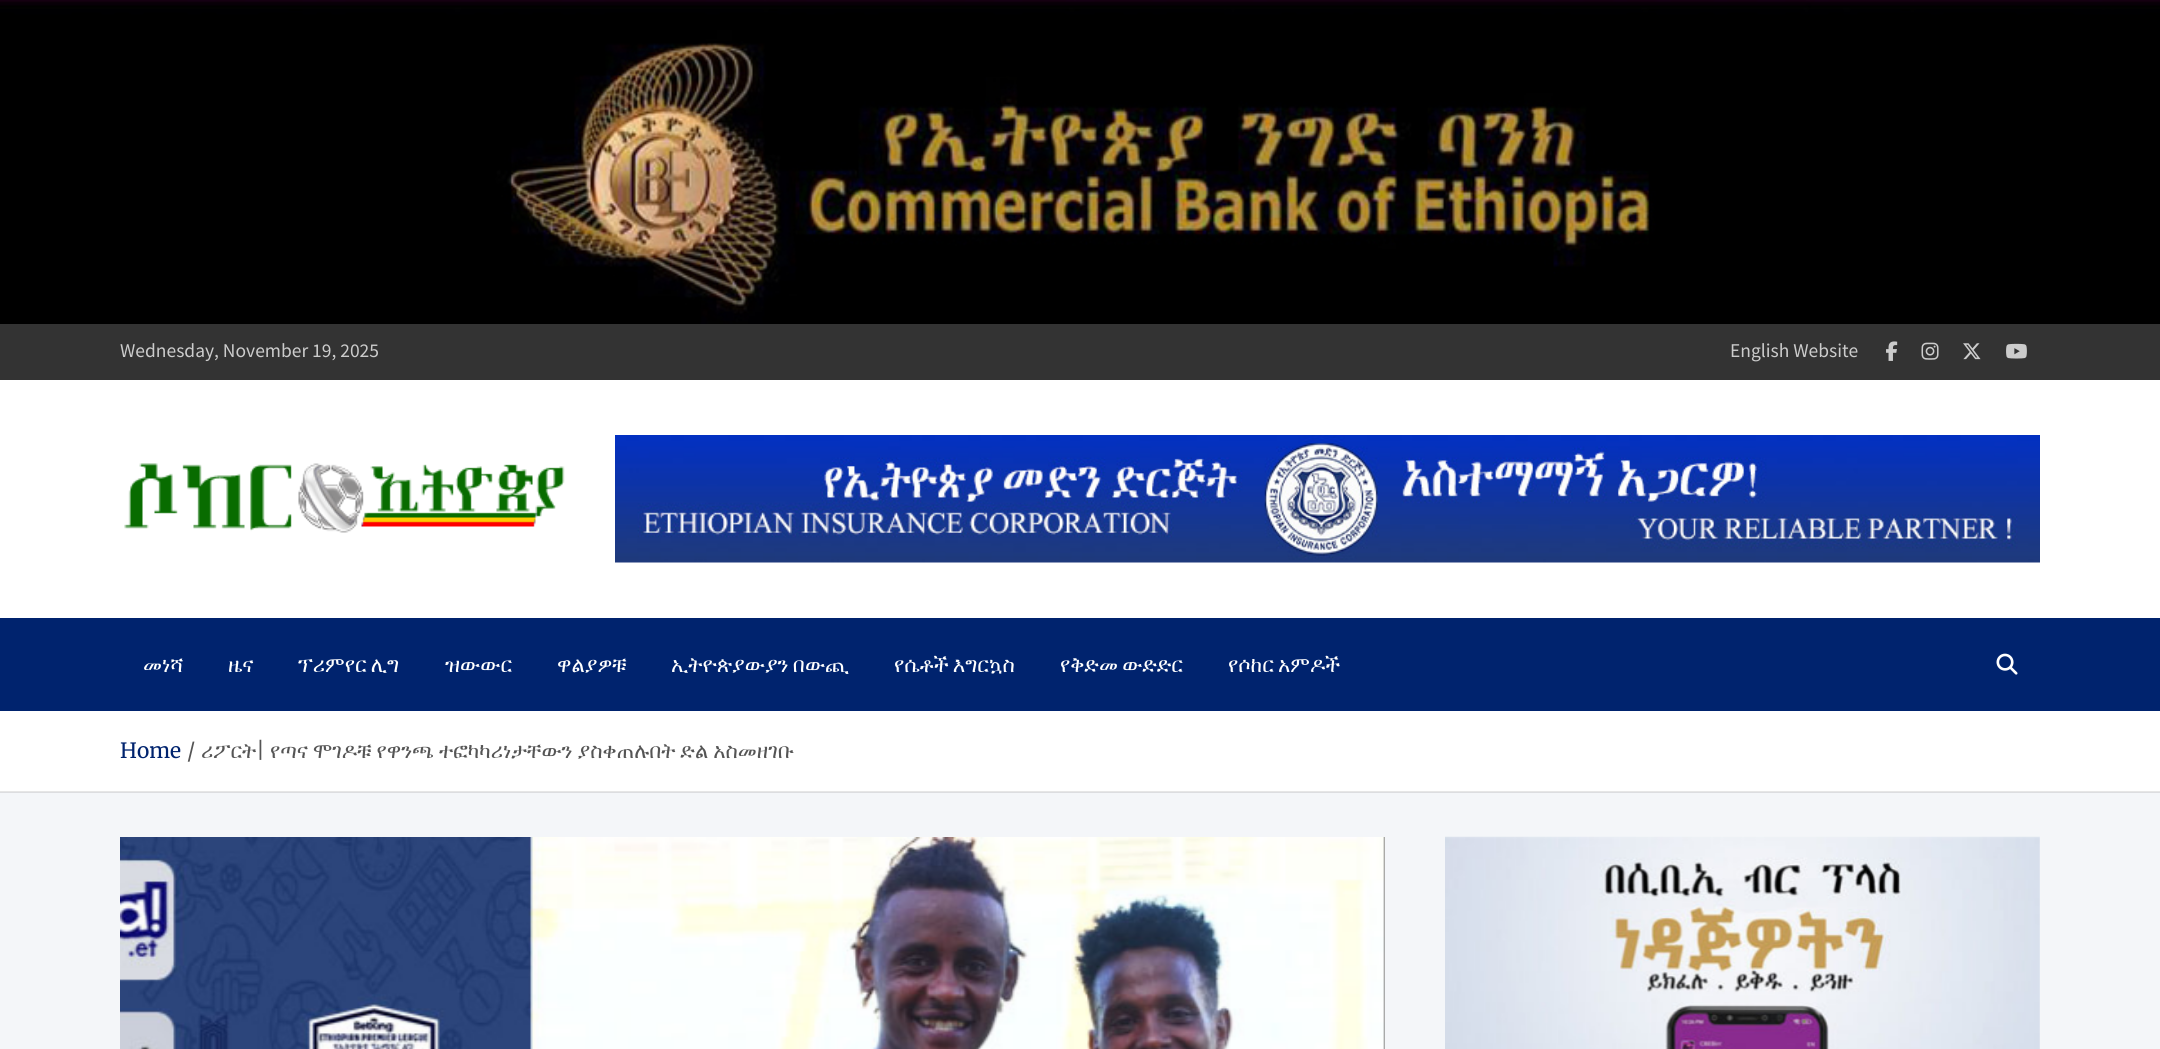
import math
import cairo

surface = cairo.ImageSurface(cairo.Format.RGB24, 2160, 1049)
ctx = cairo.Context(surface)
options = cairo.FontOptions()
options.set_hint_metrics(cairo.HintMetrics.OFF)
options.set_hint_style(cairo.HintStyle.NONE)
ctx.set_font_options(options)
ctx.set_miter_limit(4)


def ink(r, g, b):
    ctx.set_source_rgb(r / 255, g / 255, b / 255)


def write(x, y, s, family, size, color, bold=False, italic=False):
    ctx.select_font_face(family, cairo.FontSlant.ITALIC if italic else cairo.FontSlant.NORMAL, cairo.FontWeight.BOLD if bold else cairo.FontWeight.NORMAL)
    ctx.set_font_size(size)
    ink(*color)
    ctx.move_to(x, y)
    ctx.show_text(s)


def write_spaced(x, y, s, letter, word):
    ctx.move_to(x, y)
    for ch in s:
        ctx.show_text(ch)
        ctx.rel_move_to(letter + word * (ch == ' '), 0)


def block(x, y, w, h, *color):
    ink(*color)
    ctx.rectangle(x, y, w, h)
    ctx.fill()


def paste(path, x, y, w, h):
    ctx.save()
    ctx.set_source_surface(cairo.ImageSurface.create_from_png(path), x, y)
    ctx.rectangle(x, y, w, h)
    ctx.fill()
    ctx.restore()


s1 = dict(family="Source Sans Pro", size=19.5, color=(204, 204, 204))
s2 = dict(family="FreeSerif", size=21, color=(255, 255, 255))
s3 = dict(family="Merriweather", size=21, color=(0, 35, 110))
s4 = dict(family="Merriweather", size=21, color=(85, 85, 85))
s5 = dict(family="FreeSerif", size=21, color=(85, 85, 85))

ink(244, 246, 249)
ctx.paint()
block(0, 792, 2160, 1, 220, 221, 224)
paste("pic1.png", 0, 0, 2160, 324)
block(0, 324, 2160, 56, 51, 51, 51)
write(120, 357, "Wednesday, November 19, 2025", **s1)
write(1730, 357, "English Website", **s1)
paste("pic2.png", 1886, 341, 12, 20)
paste("pic3.png", 1921, 342, 18, 18)
paste("pic4.png", 1963, 343, 18, 17)
paste("pic5.png", 2006, 343, 21, 16)
block(0, 380, 2160, 238, 255, 255, 255)
paste("pic6.png", 124, 463, 441, 70)
paste("pic7.png", 615, 435, 1425, 128)
block(0, 618, 2160, 93, 0, 35, 110)
write(143, 672, "መነሻ", **s2)
write(228, 672, "ዜና", **s2)
write_spaced(298, 672, "ፕሪምየር ሊግ", 0, -1)
write(445, 672, "ዝውውር", **s2)
write(557, 672, "ዋልያዎቹ", **s2)
write_spaced(671, 672, "ኢትዮጵያውያን በውጪ", 0, -1)
write_spaced(894, 672, "የሴቶች እግርኳስ", 0, -1)
write_spaced(1060, 672, "የቅድመ ውድድር", 0, -1)
write_spaced(1228, 672, "የሶከር አምዶች", 0, -1)
paste("pic8.png", 1996, 653, 22, 22)
block(0, 711, 2160, 80, 255, 255, 255)
block(0, 791, 2160, 1, 230, 230, 230)
write(120, 758, "Home", **s3)
write(187, 758, "/", **s4)
write(201, 758, "ሪፖርት", **s5)
write(256, 758, "|", **s4)
ctx.select_font_face("FreeSerif")
write_spaced(270, 758, "የጣና ሞገዶቹ የዋንጫ ተፎካካሪነታቸውን ያስቀጠሉበት ድል አስመዘገቡ", 0, -0.25)
block(1383, 837, 2, 212, 85, 85, 85)
paste("pic9.png", 120, 837, 1265, 212)
paste("pic10.png", 1445, 836, 595, 213)
surface.write_to_png("screenshot.png")
